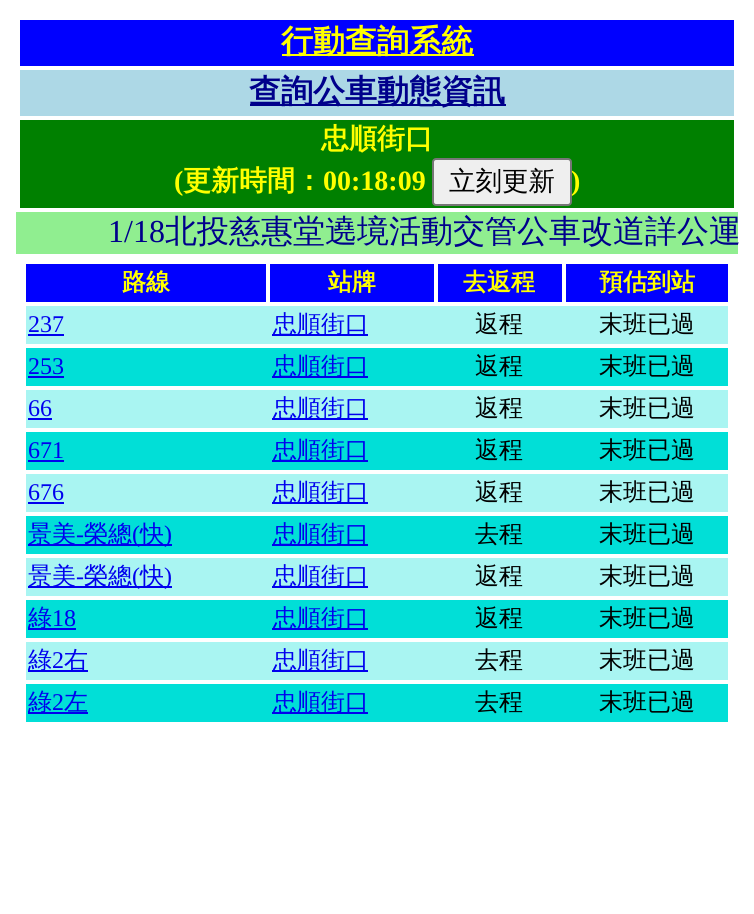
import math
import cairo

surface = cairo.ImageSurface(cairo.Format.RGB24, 754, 914)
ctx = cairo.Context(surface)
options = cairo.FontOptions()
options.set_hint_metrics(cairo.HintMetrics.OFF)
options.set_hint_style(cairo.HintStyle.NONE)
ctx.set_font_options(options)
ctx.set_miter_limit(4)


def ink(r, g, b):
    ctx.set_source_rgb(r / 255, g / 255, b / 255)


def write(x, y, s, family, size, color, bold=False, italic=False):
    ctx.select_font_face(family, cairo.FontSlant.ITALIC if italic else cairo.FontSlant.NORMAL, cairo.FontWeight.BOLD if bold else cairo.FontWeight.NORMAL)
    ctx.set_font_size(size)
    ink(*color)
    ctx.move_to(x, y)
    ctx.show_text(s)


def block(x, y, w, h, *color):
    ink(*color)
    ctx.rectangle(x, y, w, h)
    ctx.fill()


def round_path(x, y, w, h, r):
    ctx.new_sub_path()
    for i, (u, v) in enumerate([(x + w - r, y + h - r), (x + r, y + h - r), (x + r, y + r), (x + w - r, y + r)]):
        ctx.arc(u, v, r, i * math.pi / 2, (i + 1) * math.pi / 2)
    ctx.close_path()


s1 = dict(family="WenQuanYi Zen Hei", size=32, color=(255, 255, 0), bold=True)
s2 = dict(family="WenQuanYi Zen Hei", size=32, color=(0, 0, 139), bold=True)
s3 = dict(family="WenQuanYi Zen Hei", size=28, color=(255, 255, 0), bold=True)
s4 = dict(family="Liberation Serif", size=28, color=(255, 255, 0), bold=True)
s5 = dict(family="WenQuanYi Zen Hei Medium", size=26.5, color=(0, 0, 0))
s6 = dict(family="Liberation Serif", size=32, color=(0, 0, 139))
s7 = dict(family="WenQuanYi Zen Hei Medium", size=32, color=(0, 0, 139))
s8 = dict(family="WenQuanYi Zen Hei", size=24, color=(255, 255, 0), bold=True)
s9 = dict(family="Liberation Serif", size=24, color=(0, 0, 238))
s10 = dict(family="WenQuanYi Zen Hei Medium", size=24, color=(0, 0, 238))
s11 = dict(family="WenQuanYi Zen Hei Medium", size=24, color=(0, 0, 0))

ink(255, 255, 255)
ctx.paint()
block(20, 20, 714, 46, 0, 0, 255)
block(282, 54, 192, 2, 255, 255, 0)
write(281, 52, "行動查詢系統", **s1)
block(20, 70, 714, 46, 173, 216, 230)
block(250, 104, 256, 2, 0, 0, 139)
write(249, 102, "查詢公車動態資訊", **s2)
block(20, 120, 714, 88, 0, 128, 0)
write(321, 148, "忠順街口", **s3)
write(174, 190, "(", **s4)
write(183, 190, "更新時間：", **s3)
write(323, 190, "00:18:09", **s4)
ink(239, 239, 239)
round_path(433, 159, 138, 46, 3)
ctx.fill_preserve()
ink(118, 118, 118)
ctx.stroke()
write(449, 190, "立刻更新", **s5)
write(571, 190, ")", **s4)
block(16, 212, 722, 42, 144, 238, 144)
write(108, 242, "1/18", **s6)
write(165, 242, "北投慈惠堂遶境活動交管公車改道詳公運", **s7)
block(26, 264, 240, 38, 0, 0, 255)
write(122, 290, "路線", **s8)
block(270, 264, 164, 38, 0, 0, 255)
write(328, 290, "站牌", **s8)
block(438, 264, 124, 38, 0, 0, 255)
write(463, 290, "去返程", **s8)
block(566, 264, 162, 38, 0, 0, 255)
write(599, 290, "預估到站", **s8)
block(26, 306, 702, 38, 169, 245, 242)
write(28, 332, "237", **s9)
block(28, 334, 36, 2, 0, 0, 238)
block(272, 334, 96, 2, 0, 0, 238)
write(273, 332, "忠順街口", **s10)
write(475, 332, "返程", **s11)
write(599, 332, "末班已過", **s11)
block(26, 348, 702, 38, 1, 223, 215)
write(28, 374, "253", **s9)
block(28, 376, 36, 2, 0, 0, 238)
block(272, 376, 96, 2, 0, 0, 238)
write(273, 374, "忠順街口", **s10)
write(475, 374, "返程", **s11)
write(599, 374, "末班已過", **s11)
block(26, 390, 702, 38, 169, 245, 242)
write(28, 416, "66", **s9)
block(28, 418, 24, 2, 0, 0, 238)
block(272, 418, 96, 2, 0, 0, 238)
write(273, 416, "忠順街口", **s10)
write(475, 416, "返程", **s11)
write(599, 416, "末班已過", **s11)
block(26, 432, 702, 38, 1, 223, 215)
write(28, 458, "671", **s9)
block(28, 460, 36, 2, 0, 0, 238)
block(272, 460, 96, 2, 0, 0, 238)
write(273, 458, "忠順街口", **s10)
write(475, 458, "返程", **s11)
write(599, 458, "末班已過", **s11)
block(26, 474, 702, 38, 169, 245, 242)
write(28, 500, "676", **s9)
block(28, 502, 36, 2, 0, 0, 238)
block(272, 502, 96, 2, 0, 0, 238)
write(273, 500, "忠順街口", **s10)
write(475, 500, "返程", **s11)
write(599, 500, "末班已過", **s11)
block(26, 516, 702, 38, 1, 223, 215)
block(28, 544, 144, 2, 0, 0, 238)
write(28, 542, "景美", **s10)
write(76, 542, "-", **s9)
write(84, 542, "榮總", **s10)
write(132, 542, "(", **s9)
write(140, 542, "快", **s10)
write(164, 542, ")", **s9)
block(272, 544, 96, 2, 0, 0, 238)
write(273, 542, "忠順街口", **s10)
write(475, 542, "去程", **s11)
write(599, 542, "末班已過", **s11)
block(26, 558, 702, 38, 169, 245, 242)
block(28, 586, 144, 2, 0, 0, 238)
write(28, 584, "景美", **s10)
write(76, 584, "-", **s9)
write(84, 584, "榮總", **s10)
write(132, 584, "(", **s9)
write(140, 584, "快", **s10)
write(164, 584, ")", **s9)
block(272, 586, 96, 2, 0, 0, 238)
write(273, 584, "忠順街口", **s10)
write(475, 584, "返程", **s11)
write(599, 584, "末班已過", **s11)
block(26, 600, 702, 38, 1, 223, 215)
block(28, 628, 48, 2, 0, 0, 238)
write(28, 626, "綠", **s10)
write(52, 626, "18", **s9)
block(272, 628, 96, 2, 0, 0, 238)
write(273, 626, "忠順街口", **s10)
write(475, 626, "返程", **s11)
write(599, 626, "末班已過", **s11)
block(26, 642, 702, 38, 169, 245, 242)
block(28, 670, 60, 2, 0, 0, 238)
write(28, 668, "綠", **s10)
write(52, 668, "2", **s9)
write(64, 668, "右", **s10)
block(272, 670, 96, 2, 0, 0, 238)
write(273, 668, "忠順街口", **s10)
write(475, 668, "去程", **s11)
write(599, 668, "末班已過", **s11)
block(26, 684, 702, 38, 1, 223, 215)
block(28, 712, 60, 2, 0, 0, 238)
write(28, 710, "綠", **s10)
write(52, 710, "2", **s9)
write(64, 710, "左", **s10)
block(272, 712, 96, 2, 0, 0, 238)
write(273, 710, "忠順街口", **s10)
write(475, 710, "去程", **s11)
write(599, 710, "末班已過", **s11)
surface.write_to_png("screenshot.png")
